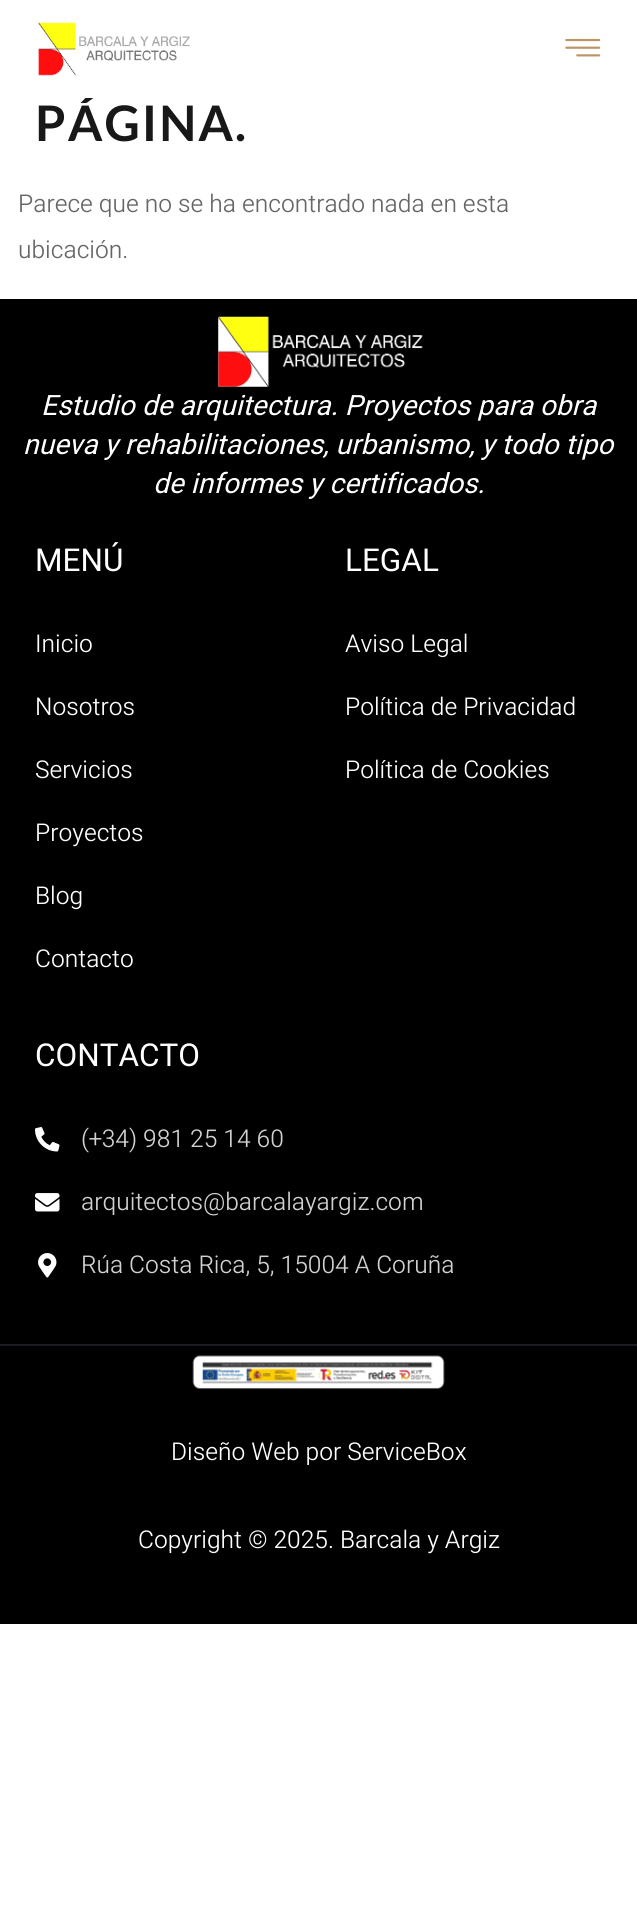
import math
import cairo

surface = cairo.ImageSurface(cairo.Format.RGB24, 637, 1919)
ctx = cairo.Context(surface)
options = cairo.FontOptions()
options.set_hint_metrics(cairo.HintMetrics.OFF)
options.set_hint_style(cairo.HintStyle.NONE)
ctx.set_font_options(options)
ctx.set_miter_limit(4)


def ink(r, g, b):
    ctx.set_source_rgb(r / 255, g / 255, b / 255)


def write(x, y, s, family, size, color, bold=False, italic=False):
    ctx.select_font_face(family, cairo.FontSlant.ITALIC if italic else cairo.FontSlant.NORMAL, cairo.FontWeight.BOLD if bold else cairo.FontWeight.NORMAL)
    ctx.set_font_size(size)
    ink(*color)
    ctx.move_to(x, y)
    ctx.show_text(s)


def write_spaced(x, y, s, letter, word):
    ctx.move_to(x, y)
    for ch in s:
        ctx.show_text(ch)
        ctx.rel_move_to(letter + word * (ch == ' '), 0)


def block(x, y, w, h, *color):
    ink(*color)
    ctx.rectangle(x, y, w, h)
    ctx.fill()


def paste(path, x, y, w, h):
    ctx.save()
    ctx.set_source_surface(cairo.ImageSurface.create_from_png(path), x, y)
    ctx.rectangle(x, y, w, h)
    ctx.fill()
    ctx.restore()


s1 = dict(family="Heebo Light", size=24.5, color=(102, 102, 102))
s2 = dict(family="Heebo", size=28, color=(255, 255, 255), italic=True)
s3 = dict(family="Heebo", size=31.5, color=(255, 255, 255))
s4 = dict(family="Heebo Light", size=24.5, color=(255, 255, 255))
s5 = dict(family="Heebo Light", size=24.5, color=(209, 209, 209))

ink(255, 255, 255)
ctx.paint()
paste("pic1.png", 38, 22, 152, 54)
paste("pic2.png", 565, 38, 36, 19)
ctx.select_font_face("Lato", cairo.FontSlant.NORMAL, cairo.FontWeight.BOLD)
ctx.set_font_size(49)
ink(24, 24, 24)
write_spaced(35, 141, "PÁGINA.", 2, 0)
block(85, 97, 10, 1, 255, 255, 255)
write(18, 212, "Parece que no se ha encontrado nada en esta", **s1)
write(18, 258, "ubicación.", **s1)
block(0, 299, 637, 1325, 0, 0, 0)
paste("pic3.png", 218, 316, 205, 71)
write(41, 415, "Estudio de arquitectura. Proyectos para obra", **s2)
write(23, 454, "nueva y rehabilitaciones, urbanismo, y todo tipo", **s2)
write(153, 493, "de informes y certificados.", **s2)
write(35, 571, "MENÚ", **s3)
write(35, 652, "Inicio", **s4)
write(35, 715, "Nosotros", **s4)
write(35, 778, "Servicios", **s4)
write(35, 841, "Proyectos", **s4)
write(35, 904, "Blog", **s4)
write(35, 967, "Contacto", **s4)
write(345, 571, "LEGAL", **s3)
write(345, 652, "Aviso Legal", **s4)
write(345, 715, "Política de Privacidad", **s4)
write(345, 778, "Política de Cookies", **s4)
write(35, 1066, "CONTACTO", **s3)
paste("pic4.png", 35, 1127, 25, 25)
write(81, 1147, "(+34) 981 25 14 60", **s5)
paste("pic5.png", 35, 1193, 25, 19)
write(81, 1210, "arquitectos@barcalayargiz.com", **s5)
paste("pic6.png", 38, 1253, 19, 25)
write(81, 1273, "Rúa Costa Rica, 5, 15004 A Coruña", **s5)
block(0, 1344, 637, 2, 27, 29, 32)
paste("pic7.png", 192, 1355, 253, 35)
write(171, 1460, "Diseño Web por ServiceBox", **s4)
write(138, 1548, "Copyright © 2025. Barcala y Argiz", **s4)
surface.write_to_png("screenshot.png")
